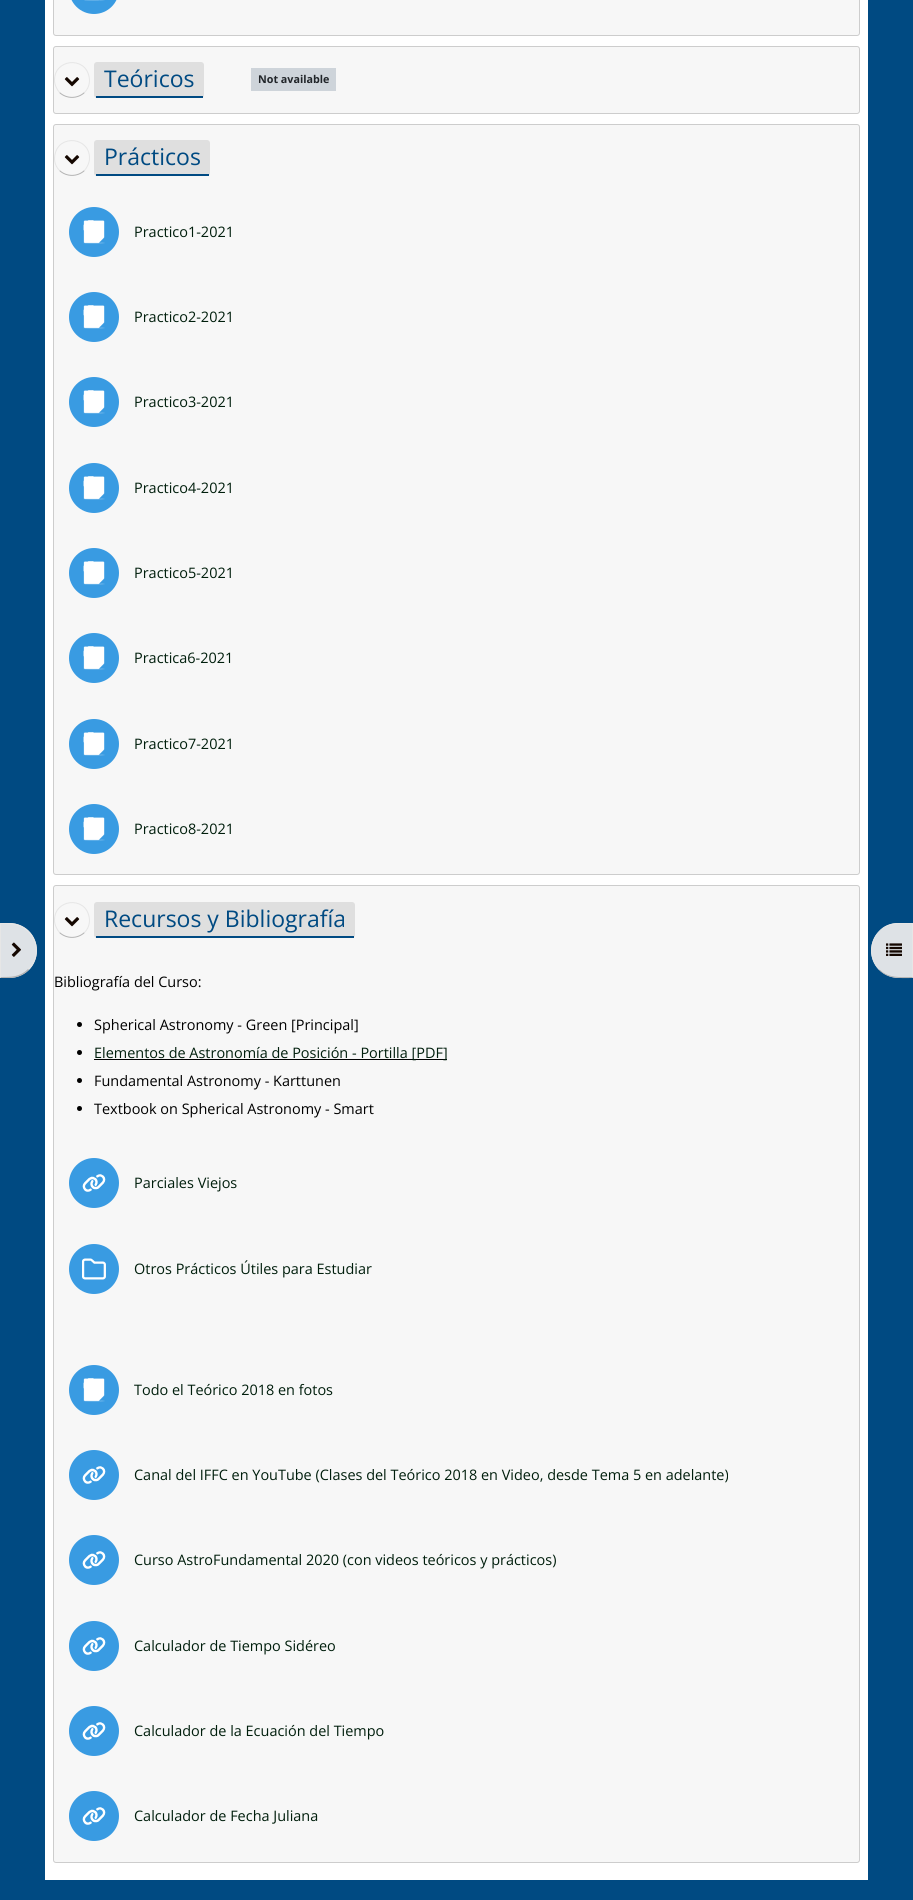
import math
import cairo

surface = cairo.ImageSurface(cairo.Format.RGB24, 913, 1900)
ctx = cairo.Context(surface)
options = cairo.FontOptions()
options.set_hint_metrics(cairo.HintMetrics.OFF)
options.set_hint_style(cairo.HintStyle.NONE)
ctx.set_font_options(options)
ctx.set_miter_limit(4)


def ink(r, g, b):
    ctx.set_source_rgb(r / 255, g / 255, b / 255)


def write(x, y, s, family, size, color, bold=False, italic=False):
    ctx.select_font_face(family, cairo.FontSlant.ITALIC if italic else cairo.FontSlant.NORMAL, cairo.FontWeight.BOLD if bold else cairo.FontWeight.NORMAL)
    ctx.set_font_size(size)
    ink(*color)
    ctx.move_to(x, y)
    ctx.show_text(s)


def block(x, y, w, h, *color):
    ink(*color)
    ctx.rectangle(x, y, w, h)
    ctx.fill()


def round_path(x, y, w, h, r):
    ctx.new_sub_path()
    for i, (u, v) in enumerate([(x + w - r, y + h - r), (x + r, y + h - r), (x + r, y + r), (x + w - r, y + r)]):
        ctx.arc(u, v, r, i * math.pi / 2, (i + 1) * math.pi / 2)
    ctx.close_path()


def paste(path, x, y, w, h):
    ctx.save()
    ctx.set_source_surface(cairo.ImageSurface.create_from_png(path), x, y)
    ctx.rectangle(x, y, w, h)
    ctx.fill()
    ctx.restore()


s1 = dict(family="Open Sans", size=23, color=(0, 74, 130))
s2 = dict(family="Open Sans", size=10.75, color=(33, 37, 41), bold=True)
s3 = dict(family="Open Sans", size=14.45, color=(0, 30, 12))
s4 = dict(family="Open Sans", size=14.45, color=(0, 0, 0))

ink(0, 74, 130)
ctx.paint()
ink(222, 226, 230)
ctx.new_path()
ctx.move_to(0, 923)
ctx.line_to(9.5, 923)
ctx.curve_to(24.5, 923, 37, 935.5, 37, 950.5)
ctx.curve_to(37, 965.5, 24.5, 978, 9.5, 978)
ctx.line_to(0, 978)
ctx.close_path()
ctx.fill()
ink(230, 230, 230)
ctx.new_path()
ctx.move_to(0, 923)
ctx.line_to(1, 924)
ctx.curve_to(11.5, 924, 20, 924, 28, 932)
ctx.line_to(29, 931)
ctx.curve_to(24, 926, 17, 923, 9, 923)
ctx.close_path()
ctx.fill()
ctx.new_path()
ctx.move_to(29, 931)
ctx.curve_to(39.5, 941.5, 39.5, 959.5, 29, 970)
ctx.line_to(28, 969)
ctx.curve_to(38.5, 959, 38.5, 942, 28, 932)
ctx.close_path()
ctx.fill()
ink(179, 179, 179)
ctx.new_path()
ctx.move_to(9, 978)
ctx.curve_to(17, 978, 24, 975, 29, 970)
ctx.line_to(28, 969)
ctx.curve_to(20, 977, 11.5, 977, 1, 977)
ctx.line_to(0, 978)
ctx.close_path()
ctx.fill()
ink(230, 230, 230)
ctx.new_path()
ctx.move_to(1, 924)
ctx.line_to(0, 923)
ctx.line_to(0, 978)
ctx.line_to(1, 977)
ctx.close_path()
ctx.fill()
paste("pic1.png", 11, 942, 10, 15)
block(45, 0, 823, 1880, 255, 255, 255)
ink(247, 247, 247)
round_path(53.5, -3.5, 806, 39, 2.5)
ctx.fill_preserve()
ink(205, 205, 205)
ctx.set_line_width(1)
ctx.stroke()
ink(57, 155, 226)
round_path(69, -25, 50, 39, 25)
ctx.fill()
paste("pic2.png", 84, 0, 21, 1)
ink(247, 247, 247)
round_path(53.5, 46.5, 806, 67, 2.5)
ctx.fill_preserve()
ink(205, 205, 205)
ctx.stroke()
ctx.new_path()
ctx.move_to(84.5, 92.5)
ctx.curve_to(77.5, 99, 66.5, 99, 59.5, 92.5)
ink(179, 179, 179)
ctx.stroke()
ctx.new_path()
ctx.move_to(59.5, 92.5)
ctx.curve_to(56.5, 89, 54.5, 84.5, 54.5, 80)
ctx.curve_to(54.5, 59, 85, 56, 89, 76.5)
ctx.curve_to(90.5, 82.5, 88.5, 88.5, 84.5, 92.5)
ink(230, 230, 230)
ctx.stroke()
paste("pic3.png", 64, 77, 16, 10)
ink(223, 223, 223)
round_path(94, 62, 110, 36, 3)
ctx.fill()
block(96, 96, 107, 2, 0, 74, 130)
write(104, 87, "Teóricos", **s1)
block(251, 68, 85, 23, 206, 212, 218)
write(258, 83, "Not available", **s2)
ink(247, 247, 247)
round_path(53.5, 124.5, 806, 750, 2.5)
ctx.fill_preserve()
ink(205, 205, 205)
ctx.stroke()
ctx.new_path()
ctx.move_to(84.5, 170.5)
ctx.curve_to(77.5, 177, 66.5, 177, 59.5, 170.5)
ink(179, 179, 179)
ctx.stroke()
ctx.new_path()
ctx.move_to(59.5, 170.5)
ctx.curve_to(55.5, 166.5, 53.5, 160.5, 55, 154.5)
ctx.curve_to(59, 134, 89.5, 137, 89.5, 158)
ctx.curve_to(89.5, 162.5, 87.5, 167, 84.5, 170.5)
ink(230, 230, 230)
ctx.stroke()
paste("pic3.png", 64, 155, 16, 10)
ink(223, 223, 223)
round_path(94, 140, 116, 36, 3)
ctx.fill()
block(96, 174, 113, 2, 0, 74, 130)
write(104, 165, "Prácticos", **s1)
ink(57, 155, 226)
ctx.new_path()
ctx.arc(94, 232, 25, 0, 2 * math.pi)
ctx.fill()
paste("pic4.png", 83, 220, 22, 24)
write(134, 237, "Practico1-2021", **s3)
ink(57, 155, 226)
ctx.new_path()
ctx.arc(94, 317, 25, 0, 2 * math.pi)
ctx.fill()
paste("pic4.png", 83, 305, 22, 24)
write(134, 322, "Practico2-2021", **s3)
ink(57, 155, 226)
ctx.new_path()
ctx.arc(94, 402, 25, 0, 2 * math.pi)
ctx.fill()
paste("pic4.png", 83, 390, 22, 24)
write(134, 407, "Practico3-2021", **s3)
ink(57, 155, 226)
ctx.new_path()
ctx.arc(94, 488, 25, 0, 2 * math.pi)
ctx.fill()
paste("pic4.png", 83, 476, 22, 24)
write(134, 493, "Practico4-2021", **s3)
ink(57, 155, 226)
ctx.new_path()
ctx.arc(94, 573, 25, 0, 2 * math.pi)
ctx.fill()
paste("pic4.png", 83, 561, 22, 24)
write(134, 578, "Practico5-2021", **s3)
ink(57, 155, 226)
ctx.new_path()
ctx.arc(94, 658, 25, 0, 2 * math.pi)
ctx.fill()
paste("pic4.png", 83, 646, 22, 24)
write(134, 663, "Practica6-2021", **s3)
ink(57, 155, 226)
ctx.new_path()
ctx.arc(94, 744, 25, 0, 2 * math.pi)
ctx.fill()
paste("pic4.png", 83, 732, 22, 24)
write(134, 749, "Practico7-2021", **s3)
ink(57, 155, 226)
ctx.new_path()
ctx.arc(94, 829, 25, 0, 2 * math.pi)
ctx.fill()
paste("pic4.png", 83, 817, 22, 24)
write(134, 834, "Practico8-2021", **s3)
ink(247, 247, 247)
round_path(53.5, 885.5, 806, 977, 2.5)
ctx.fill_preserve()
ink(205, 205, 205)
ctx.stroke()
ctx.new_path()
ctx.move_to(84.5, 932.5)
ctx.curve_to(77.5, 939, 66.5, 939, 59.5, 932.5)
ink(179, 179, 179)
ctx.stroke()
ctx.new_path()
ctx.move_to(59.5, 932.5)
ctx.curve_to(56.5, 929, 54.5, 924.5, 54.5, 920)
ctx.curve_to(54.5, 899, 85, 896, 89, 916.5)
ctx.curve_to(90.5, 922.5, 88.5, 928.5, 84.5, 932.5)
ink(230, 230, 230)
ctx.stroke()
paste("pic3.png", 64, 917, 16, 10)
ink(223, 223, 223)
round_path(94, 902, 261, 36, 3)
ctx.fill()
block(96, 936, 258, 2, 0, 74, 130)
write(104, 927, "Recursos y Bibliografía", **s1)
write(54, 987, "Bibliografía del Curso:", **s4)
ctx.new_path()
ctx.arc(79.5, 1024.5, 2.5, 0, 2 * math.pi)
ctx.fill()
write(94, 1030, "Spherical Astronomy - Green [Principal]", **s4)
ctx.new_path()
ctx.arc(79.5, 1052.5, 2.5, 0, 2 * math.pi)
ctx.fill()
block(94, 1059, 353, 1, 0, 0, 0)
write(94, 1058, "Elementos de Astronomía de Posición - Portilla [PDF]", **s3)
ink(0, 0, 0)
ctx.new_path()
ctx.arc(79.5, 1080.5, 2.5, 0, 2 * math.pi)
ctx.fill()
write(94, 1086, "Fundamental Astronomy - Karttunen", **s4)
ctx.new_path()
ctx.arc(79.5, 1108.5, 2.5, 0, 2 * math.pi)
ctx.fill()
write(94, 1114, "Textbook on Spherical Astronomy - Smart", **s4)
ink(57, 155, 226)
ctx.new_path()
ctx.arc(94, 1183, 25, 0, 2 * math.pi)
ctx.fill()
paste("pic5.png", 82, 1174, 24, 18)
write(134, 1188, "Parciales Viejos", **s3)
ink(57, 155, 226)
ctx.new_path()
ctx.arc(94, 1269, 25, 0, 2 * math.pi)
ctx.fill()
paste("pic6.png", 82, 1258, 24, 22)
write(134, 1274, "Otros Prácticos Útiles para Estudiar", **s3)
ink(57, 155, 226)
ctx.new_path()
ctx.arc(94, 1390, 25, 0, 2 * math.pi)
ctx.fill()
paste("pic4.png", 83, 1378, 22, 24)
write(134, 1395, "Todo el Teórico 2018 en fotos", **s3)
ink(57, 155, 226)
ctx.new_path()
ctx.arc(94, 1475, 25, 0, 2 * math.pi)
ctx.fill()
paste("pic5.png", 82, 1466, 24, 18)
write(134, 1480, "Canal del IFFC en YouTube (Clases del Teórico 2018 en Video, desde Tema 5 en adelante)", **s3)
ink(57, 155, 226)
ctx.new_path()
ctx.arc(94, 1560, 25, 0, 2 * math.pi)
ctx.fill()
paste("pic7.png", 82, 1551, 24, 18)
write(134, 1565, "Curso AstroFundamental 2020 (con videos teóricos y prácticos)", **s3)
ink(57, 155, 226)
ctx.new_path()
ctx.arc(94, 1646, 25, 0, 2 * math.pi)
ctx.fill()
paste("pic7.png", 82, 1637, 24, 18)
write(134, 1651, "Calculador de Tiempo Sidéreo", **s3)
ink(57, 155, 226)
ctx.new_path()
ctx.arc(94, 1731, 25, 0, 2 * math.pi)
ctx.fill()
paste("pic5.png", 82, 1722, 24, 18)
write(134, 1736, "Calculador de la Ecuación del Tiempo", **s3)
ink(57, 155, 226)
ctx.new_path()
ctx.arc(94, 1816, 25, 0, 2 * math.pi)
ctx.fill()
paste("pic7.png", 82, 1807, 24, 18)
write(134, 1821, "Calculador de Fecha Juliana", **s3)
ink(222, 226, 230)
ctx.new_path()
ctx.move_to(898.5, 923)
ctx.line_to(913, 923)
ctx.line_to(913, 978)
ctx.line_to(898.5, 978)
ctx.curve_to(883.5, 978, 871, 965.5, 871, 950.5)
ctx.curve_to(871, 935.5, 883.5, 923, 898.5, 923)
ctx.close_path()
ctx.fill()
ink(230, 230, 230)
ctx.new_path()
ctx.move_to(898, 923)
ctx.curve_to(890, 923, 883.5, 926, 879, 931)
ctx.line_to(879.5, 931.5)
ctx.curve_to(888.5, 922.5, 900.5, 924, 912, 924)
ctx.line_to(913, 923)
ctx.close_path()
ctx.fill()
ctx.new_path()
ctx.move_to(913, 923)
ctx.line_to(912, 924)
ctx.line_to(912, 977)
ctx.line_to(913, 978)
ctx.close_path()
ctx.fill()
ink(179, 179, 179)
ctx.new_path()
ctx.move_to(913, 978)
ctx.curve_to(900.5, 978, 888.5, 979.5, 879, 970)
ctx.line_to(879.5, 969.5)
ctx.curve_to(888.5, 978.5, 900.5, 977, 912, 977)
ctx.close_path()
ctx.fill()
ink(230, 230, 230)
ctx.new_path()
ctx.move_to(879, 931)
ctx.curve_to(869, 941, 868, 959, 879, 970)
ctx.line_to(879.5, 969.5)
ctx.curve_to(869, 959, 870, 941.5, 879.5, 931.5)
ctx.close_path()
ctx.fill()
paste("pic8.png", 886, 943, 16, 13)
surface.write_to_png("screenshot.png")
